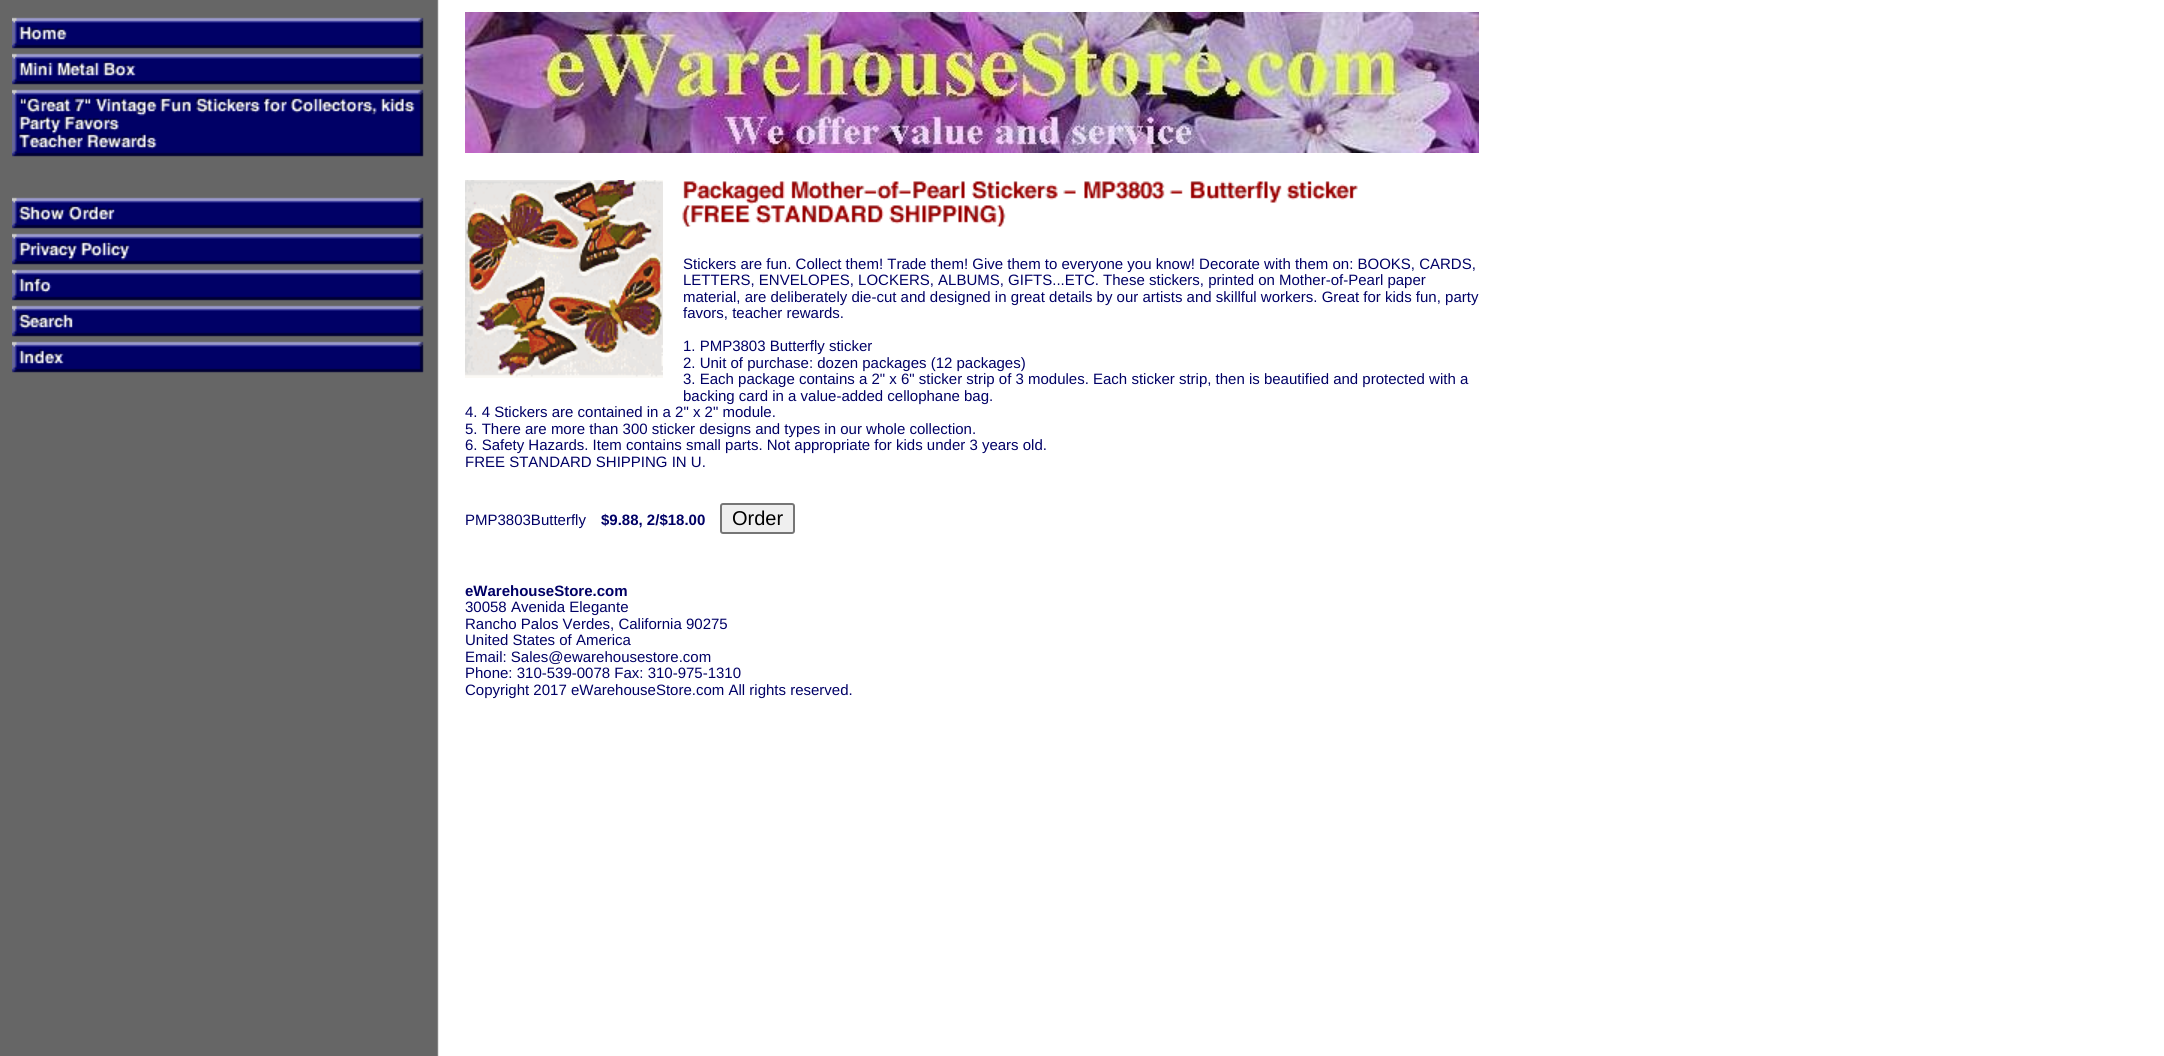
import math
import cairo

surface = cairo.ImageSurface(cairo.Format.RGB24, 2164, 1056)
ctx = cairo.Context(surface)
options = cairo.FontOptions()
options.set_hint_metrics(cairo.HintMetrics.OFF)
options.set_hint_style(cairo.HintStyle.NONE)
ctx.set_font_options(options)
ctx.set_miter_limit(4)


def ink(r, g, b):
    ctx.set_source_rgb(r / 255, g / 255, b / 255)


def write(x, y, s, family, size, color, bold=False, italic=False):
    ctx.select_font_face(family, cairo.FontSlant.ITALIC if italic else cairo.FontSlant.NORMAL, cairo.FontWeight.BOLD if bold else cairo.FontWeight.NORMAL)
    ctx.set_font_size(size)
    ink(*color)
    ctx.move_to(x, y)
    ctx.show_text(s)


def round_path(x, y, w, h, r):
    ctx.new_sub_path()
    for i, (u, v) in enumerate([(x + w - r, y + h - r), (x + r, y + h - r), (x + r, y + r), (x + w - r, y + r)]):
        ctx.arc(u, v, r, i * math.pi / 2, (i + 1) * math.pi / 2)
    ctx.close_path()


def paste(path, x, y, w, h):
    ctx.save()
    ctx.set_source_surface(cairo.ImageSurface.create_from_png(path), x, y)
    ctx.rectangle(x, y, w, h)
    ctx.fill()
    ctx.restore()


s1 = dict(family="Liberation Sans", size=15, color=(0, 0, 102))
s2 = dict(family="Liberation Sans", size=15, color=(0, 0, 102), bold=True)
s3 = dict(family="Liberation Sans", size=20, color=(0, 0, 0))

ink(255, 255, 255)
ctx.paint()
paste("pic1.png", 0, 0, 439, 1056)
paste("pic2.png", 12, 17, 412, 356)
paste("pic3.png", 465, 12, 1014, 141)
paste("pic4.png", 465, 180, 198, 198)
paste("pic5.png", 682, 181, 676, 46)
write(683, 269, "Stickers are fun. Collect them! Trade them! Give them to everyone you know! Decorate with them on: BOOKS, CARDS,", **s1)
write(683, 285, "LETTERS, ENVELOPES, LOCKERS, ALBUMS, GIFTS...ETC. These stickers, printed on Mother-of-Pearl paper", **s1)
write(683, 302, "material, are deliberately die-cut and designed in great details by our artists and skillful workers. Great for kids fun, party", **s1)
write(683, 318, "favors, teacher rewards.", **s1)
write(683, 351, "1. PMP3803 Butterfly sticker", **s1)
write(683, 368, "2. Unit of purchase: dozen packages (12 packages)", **s1)
write(683, 384, "3. Each package contains a 2\" x 6\" sticker strip of 3 modules. Each sticker strip, then is beautified and protected with a", **s1)
write(683, 401, "backing card in a value-added cellophane bag.", **s1)
write(465, 417, "4. 4 Stickers are contained in a 2\" x 2\" module.", **s1)
write(465, 434, "5. There are more than 300 sticker designs and types in our whole collection.", **s1)
write(465, 450, "6. Safety Hazards. Item contains small parts. Not appropriate for kids under 3 years old.", **s1)
write(465, 467, "FREE STANDARD SHIPPING IN U.", **s1)
write(465, 525, "PMP3803Butterfly", **s1)
write(601, 525, "$9.88, 2/$18.00", **s2)
ink(239, 239, 239)
round_path(721, 504, 73, 29, 2)
ctx.fill_preserve()
ink(118, 118, 118)
ctx.stroke()
write(732, 525, "Order", **s3)
write(465, 596, "eWarehouseStore.com", **s2)
write(465, 612, "30058 Avenida Elegante", **s1)
write(465, 629, "Rancho Palos Verdes, California 90275", **s1)
write(465, 645, "United States of America", **s1)
write(465, 662, "Email: Sales@ewarehousestore.com", **s1)
write(465, 678, "Phone: 310-539-0078 Fax: 310-975-1310", **s1)
write(465, 695, "Copyright 2017 eWarehouseStore.com All rights reserved.", **s1)
surface.write_to_png("screenshot.png")
